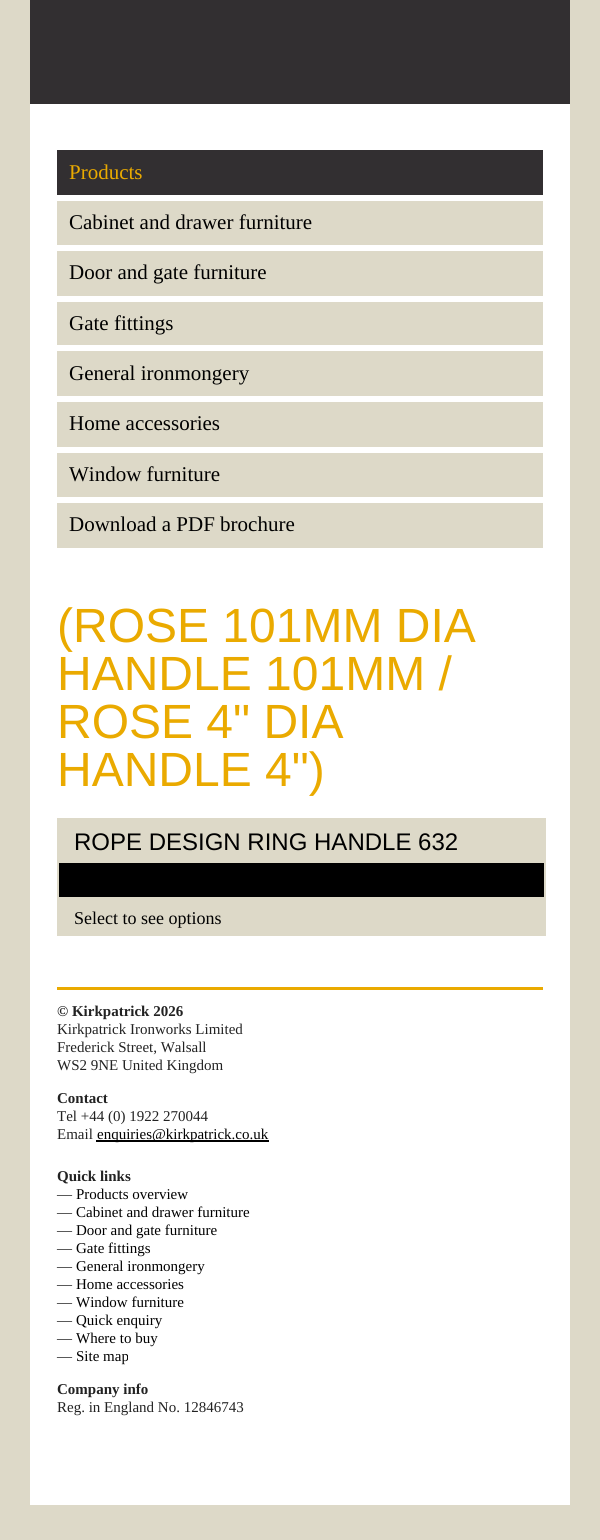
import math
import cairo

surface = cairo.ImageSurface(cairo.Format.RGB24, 600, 1540)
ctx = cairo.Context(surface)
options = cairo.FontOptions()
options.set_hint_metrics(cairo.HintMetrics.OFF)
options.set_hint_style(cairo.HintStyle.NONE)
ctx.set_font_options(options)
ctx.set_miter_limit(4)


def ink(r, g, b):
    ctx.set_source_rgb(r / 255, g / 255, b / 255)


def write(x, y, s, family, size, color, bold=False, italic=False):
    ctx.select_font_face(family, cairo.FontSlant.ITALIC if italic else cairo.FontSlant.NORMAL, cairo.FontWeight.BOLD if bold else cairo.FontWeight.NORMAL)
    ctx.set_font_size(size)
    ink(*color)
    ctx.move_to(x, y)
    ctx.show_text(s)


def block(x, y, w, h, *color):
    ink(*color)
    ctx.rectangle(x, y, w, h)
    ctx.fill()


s1 = dict(family="Liberation Serif", size=21, color=(234, 170, 0))
s2 = dict(family="Liberation Serif", size=21, color=(0, 0, 0))
s3 = dict(family="Liberation Sans", size=48, color=(234, 170, 0))
s4 = dict(family="Liberation Sans", size=24, color=(0, 0, 0))
s5 = dict(family="Liberation Serif", size=18, color=(0, 0, 0))
s6 = dict(family="Liberation Serif", size=15, color=(34, 34, 34), bold=True)
s7 = dict(family="Liberation Serif", size=15, color=(34, 34, 34))
s8 = dict(family="Liberation Serif", size=15, color=(0, 0, 0))

ink(221, 217, 200)
ctx.paint()
block(30, 104, 540, 1401, 255, 255, 255)
block(30, 0, 540, 104, 50, 47, 49)
block(57, 150, 486, 45, 50, 47, 49)
write(69, 179, "Products", **s1)
block(57, 201, 486, 44, 221, 217, 200)
write(69, 229, "Cabinet and drawer furniture", **s2)
block(57, 251, 486, 45, 221, 217, 200)
write(69, 279, "Door and gate furniture", **s2)
block(57, 302, 486, 43, 221, 217, 200)
write(69, 330, "Gate fittings", **s2)
block(57, 351, 486, 45, 221, 217, 200)
write(69, 380, "General ironmongery", **s2)
block(57, 402, 486, 45, 221, 217, 200)
write(69, 430, "Home accessories", **s2)
block(57, 453, 486, 44, 221, 217, 200)
write(69, 481, "Window furniture", **s2)
block(57, 503, 486, 45, 221, 217, 200)
write(69, 531, "Download a PDF brochure", **s2)
write(57, 642, "(ROSE 101MM DIA", **s3)
write(57, 690, "HANDLE 101MM /", **s3)
write(57, 738, "ROSE 4\" DIA", **s3)
write(57, 786, "HANDLE 4\")", **s3)
block(59, 863, 485, 34, 0, 0, 0)
ctx.rectangle(58, 819, 487, 116)
ink(221, 217, 200)
ctx.stroke()
block(59, 820, 485, 43, 221, 217, 200)
write(74, 850, "ROPE DESIGN RING HANDLE 632", **s4)
block(59, 897, 485, 37, 221, 217, 200)
write(74, 924, "Select to see options", **s5)
block(57, 987, 486, 3, 234, 170, 0)
write(57, 1016, "© Kirkpatrick 2026", **s6)
write(57, 1034, "Kirkpatrick Ironworks Limited", **s7)
write(57, 1052, "Frederick Street, Walsall", **s7)
write(57, 1070, "WS2 9NE United Kingdom", **s7)
write(57, 1103, "Contact", **s6)
write(57, 1121, "Tel +44 (0) 1922 270044", **s7)
write(57, 1139, "Email", **s7)
block(96, 1140, 173, 2, 0, 0, 0)
write(97, 1139, "enquiries@kirkpatrick.co.uk", **s8)
write(57, 1181, "Quick links", **s6)
write(57, 1199, "—", **s7)
write(76, 1199, "Products overview", **s8)
write(57, 1217, "—", **s7)
write(76, 1217, "Cabinet and drawer furniture", **s8)
write(57, 1235, "—", **s7)
write(76, 1235, "Door and gate furniture", **s8)
write(57, 1253, "—", **s7)
write(76, 1253, "Gate fittings", **s8)
write(57, 1271, "—", **s7)
write(76, 1271, "General ironmongery", **s8)
write(57, 1289, "—", **s7)
write(76, 1289, "Home accessories", **s8)
write(57, 1307, "—", **s7)
write(76, 1307, "Window furniture", **s8)
write(57, 1325, "—", **s7)
write(76, 1325, "Quick enquiry", **s8)
write(57, 1343, "—", **s7)
write(76, 1343, "Where to buy", **s8)
write(57, 1361, "—", **s7)
write(76, 1361, "Site map", **s8)
write(57, 1394, "Company info", **s6)
write(57, 1412, "Reg. in England No. 12846743", **s7)
surface.write_to_png("screenshot.png")
